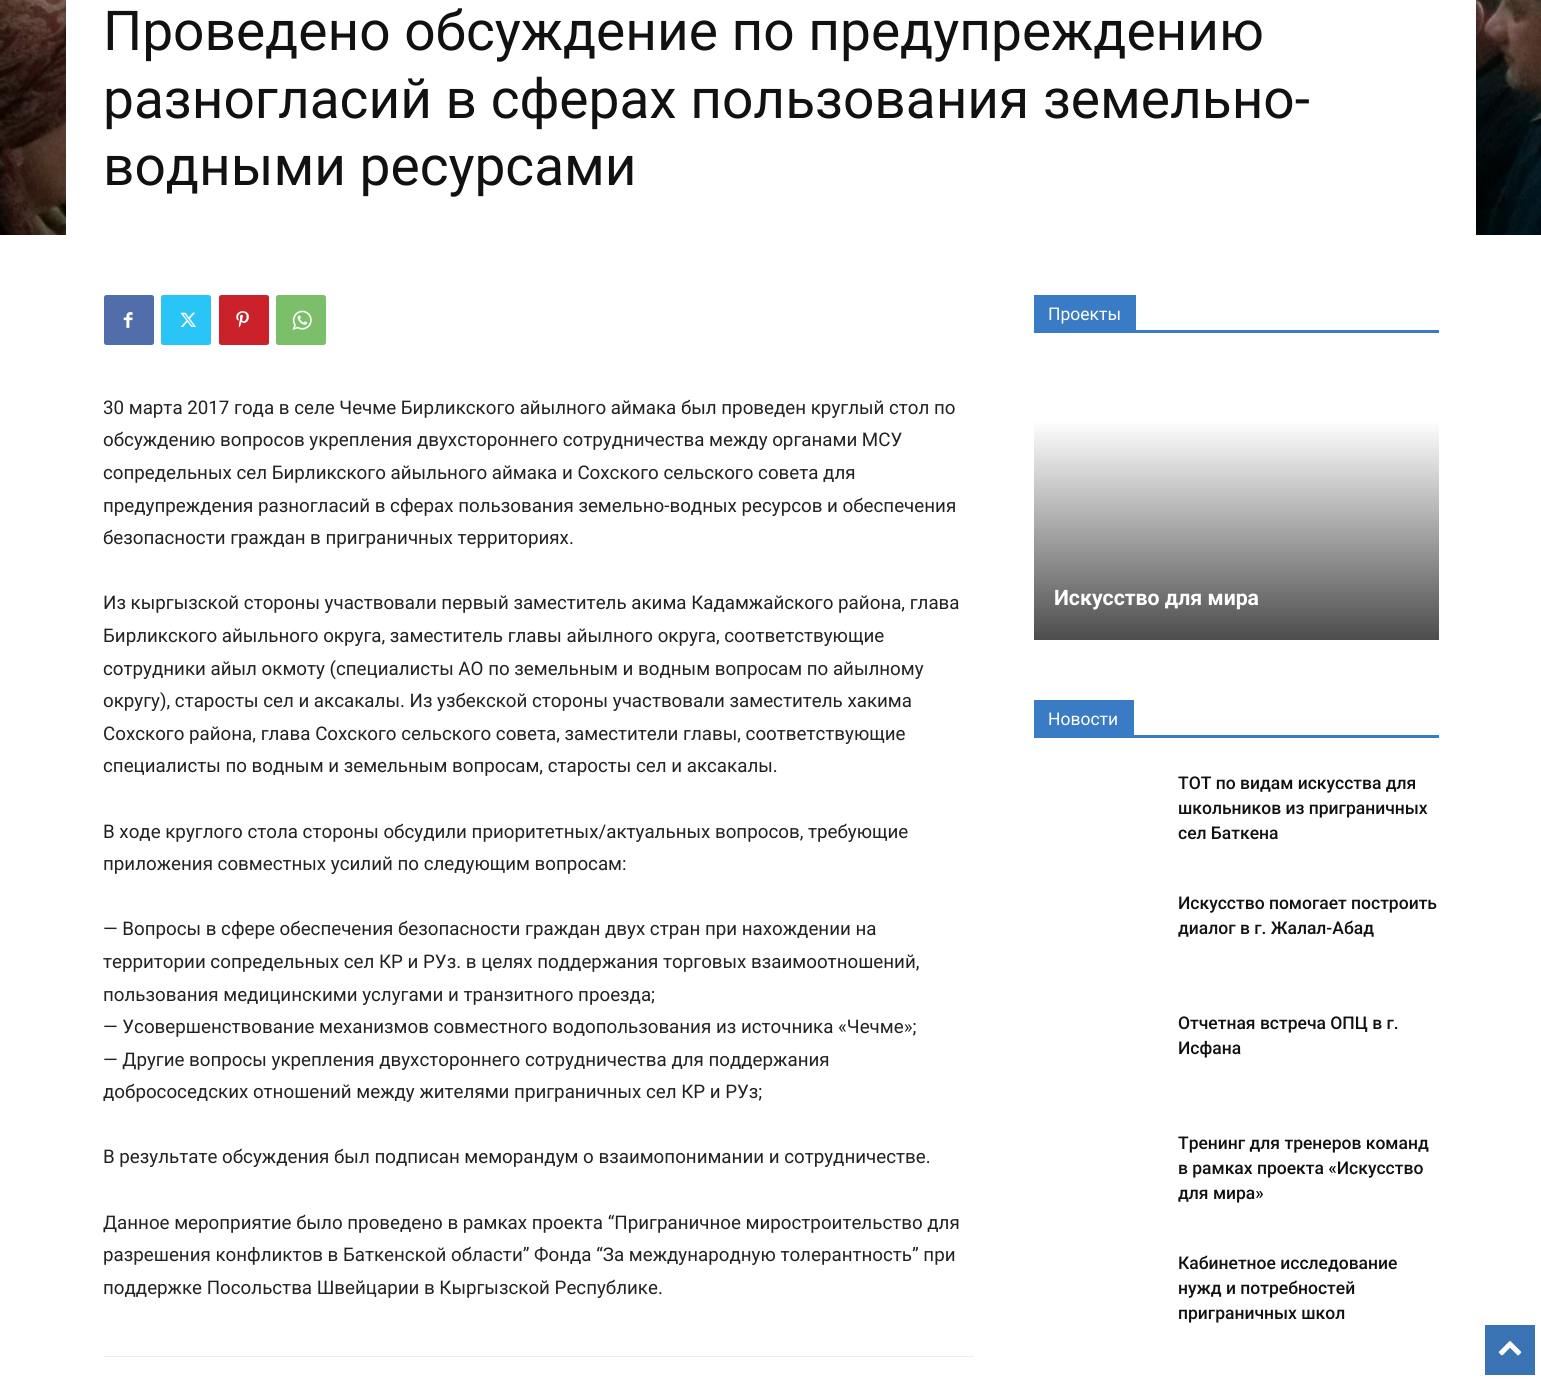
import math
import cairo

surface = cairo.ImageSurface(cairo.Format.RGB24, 1541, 1379)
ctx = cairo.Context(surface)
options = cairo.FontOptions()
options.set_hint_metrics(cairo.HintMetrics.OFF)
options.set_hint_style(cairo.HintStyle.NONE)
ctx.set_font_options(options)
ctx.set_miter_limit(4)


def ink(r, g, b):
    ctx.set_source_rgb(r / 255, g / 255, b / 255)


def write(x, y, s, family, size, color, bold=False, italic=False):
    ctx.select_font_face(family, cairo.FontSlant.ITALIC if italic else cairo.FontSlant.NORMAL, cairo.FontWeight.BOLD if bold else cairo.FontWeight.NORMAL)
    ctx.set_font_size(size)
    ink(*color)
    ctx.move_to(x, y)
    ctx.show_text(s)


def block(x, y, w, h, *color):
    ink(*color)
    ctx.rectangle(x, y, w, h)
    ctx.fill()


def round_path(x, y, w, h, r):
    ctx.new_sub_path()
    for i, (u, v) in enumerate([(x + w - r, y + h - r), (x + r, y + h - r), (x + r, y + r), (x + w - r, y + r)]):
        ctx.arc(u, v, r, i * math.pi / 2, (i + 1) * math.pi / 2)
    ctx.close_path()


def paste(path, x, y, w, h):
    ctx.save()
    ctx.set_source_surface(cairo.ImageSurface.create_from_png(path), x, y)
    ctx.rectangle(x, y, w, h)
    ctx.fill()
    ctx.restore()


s1 = dict(family="Roboto", size=55, color=(17, 17, 17))
s2 = dict(family="Roboto", size=18.75, color=(34, 34, 34))
s3 = dict(family="Roboto", size=17.5, color=(255, 255, 255))
s4 = dict(family="Roboto", size=21.25, color=(255, 255, 255), bold=True)
s5 = dict(family="Roboto Medium", size=17.5, color=(17, 17, 17))

ink(255, 255, 255)
ctx.paint()
paste("pic1.png", 0, 0, 1541, 235)
block(66, 0, 1410, 235, 255, 255, 255)
write(103, 50, "Проведено обсуждение по предупреждению", **s1)
write(103, 118, "разногласий в сферах пользования земельно-", **s1)
write(103, 185, "водными ресурсами", **s1)
ink(81, 110, 171)
round_path(104, 295, 50, 50, 2.5)
ctx.fill()
paste("pic2.png", 123, 312, 10, 16)
ink(41, 197, 246)
round_path(161, 295, 50, 50, 2.5)
ctx.fill()
paste("pic3.png", 180, 312, 16, 15)
ink(202, 33, 42)
round_path(219, 295, 50, 50, 2.5)
ctx.fill()
paste("pic4.png", 236, 311, 13, 17)
ink(123, 191, 106)
round_path(276, 295, 50, 50, 2.5)
ctx.fill()
paste("pic5.png", 292, 310, 20, 20)
write(103, 414, "30 марта 2017 года в селе Чечме Бирликского айылного аймака был проведен круглый стол по", **s2)
write(103, 446, "обсуждению вопросов укрепления двухстороннего сотрудничества между органами МСУ", **s2)
write(103, 479, "сопредельных сел Бирликского айыльного аймака и Сохского сельского совета для", **s2)
write(103, 512, "предупреждения разногласий в сферах пользования земельно-водных ресурсов и обеспечения", **s2)
write(103, 544, "безопасности граждан в приграничных территориях.", **s2)
write(103, 609, "Из кыргызской стороны участвовали первый заместитель акима Кадамжайского района, глава", **s2)
write(103, 642, "Бирликского айыльного округа, заместитель главы айылного округа, соответствующие", **s2)
write(103, 675, "сотрудники айыл окмоту (специалисты АО по земельным и водным вопросам по айылному", **s2)
write(103, 707, "округу), старосты сел и аксакалы. Из узбекской стороны участвовали заместитель хакима", **s2)
write(103, 740, "Сохского района, глава Сохского сельского совета, заместители главы, соответствующие", **s2)
write(103, 772, "специалисты по водным и земельным вопросам, старосты сел и аксакалы.", **s2)
write(103, 838, "В ходе круглого стола стороны обсудили приоритетных/актуальных вопросов, требующие", **s2)
write(103, 870, "приложения совместных усилий по следующим вопросам:", **s2)
write(103, 935, "— Вопросы в сфере обеспечения безопасности граждан двух стран при нахождении на", **s2)
write(103, 968, "территории сопредельных сел КР и РУз. в целях поддержания торговых взаимоотношений,", **s2)
write(103, 1001, "пользования медицинскими услугами и транзитного проезда;", **s2)
write(103, 1033, "— Усовершенствование механизмов совместного водопользования из источника «Чечме»;", **s2)
write(103, 1066, "— Другие вопросы укрепления двухстороннего сотрудничества для поддержания", **s2)
write(103, 1098, "добрососедских отношений между жителями приграничных сел КР и РУз;", **s2)
write(103, 1163, "В результате обсуждения был подписан меморандум о взаимопонимании и сотрудничестве.", **s2)
write(103, 1229, "Данное мероприятие было проведено в рамках проекта “Приграничное миростроительство для", **s2)
write(103, 1261, "разрешения конфликтов в Баткенской области” Фонда “За международную толерантность” при", **s2)
write(103, 1294, "поддержке Посольства Швейцарии в Кыргызской Республике.", **s2)
block(104, 1356, 870, 1, 237, 237, 237)
block(1034, 330, 405, 3, 57, 123, 197)
block(1034, 295, 102, 35, 57, 123, 197)
write(1048, 320, "Проекты", **s3)
gradient = cairo.LinearGradient(1236, 420, 1236, 640)
gradient.add_color_stop_rgba(0, 1, 1, 1, 1)
gradient.add_color_stop_rgba(1, 0.302, 0.302, 0.302, 1)
ctx.set_source(gradient)
ctx.rectangle(1034, 423, 405, 217)
ctx.fill()
write(1054, 605, "Искусство для мира", **s4)
block(1034, 735, 405, 3, 57, 123, 197)
block(1034, 700, 100, 35, 57, 123, 197)
write(1048, 725, "Новости", **s3)
write(1178, 789, "ТОТ по видам искусства для", **s5)
write(1178, 814, "школьников из приграничных", **s5)
write(1178, 839, "сел Баткена", **s5)
write(1178, 909, "Искусство помогает построить", **s5)
write(1178, 934, "диалог в г. Жалал-Абад", **s5)
write(1178, 1029, "Отчетная встреча ОПЦ в г.", **s5)
write(1178, 1054, "Исфана", **s5)
write(1178, 1149, "Тренинг для тренеров команд", **s5)
write(1178, 1174, "в рамках проекта «Искусство", **s5)
write(1178, 1199, "для мира»", **s5)
write(1178, 1269, "Кабинетное исследование", **s5)
write(1178, 1294, "нужд и потребностей", **s5)
write(1178, 1319, "приграничных школ", **s5)
block(1485, 1325, 50, 50, 58, 115, 180)
paste("pic6.png", 1498, 1341, 24, 15)
surface.write_to_png("screenshot.png")
